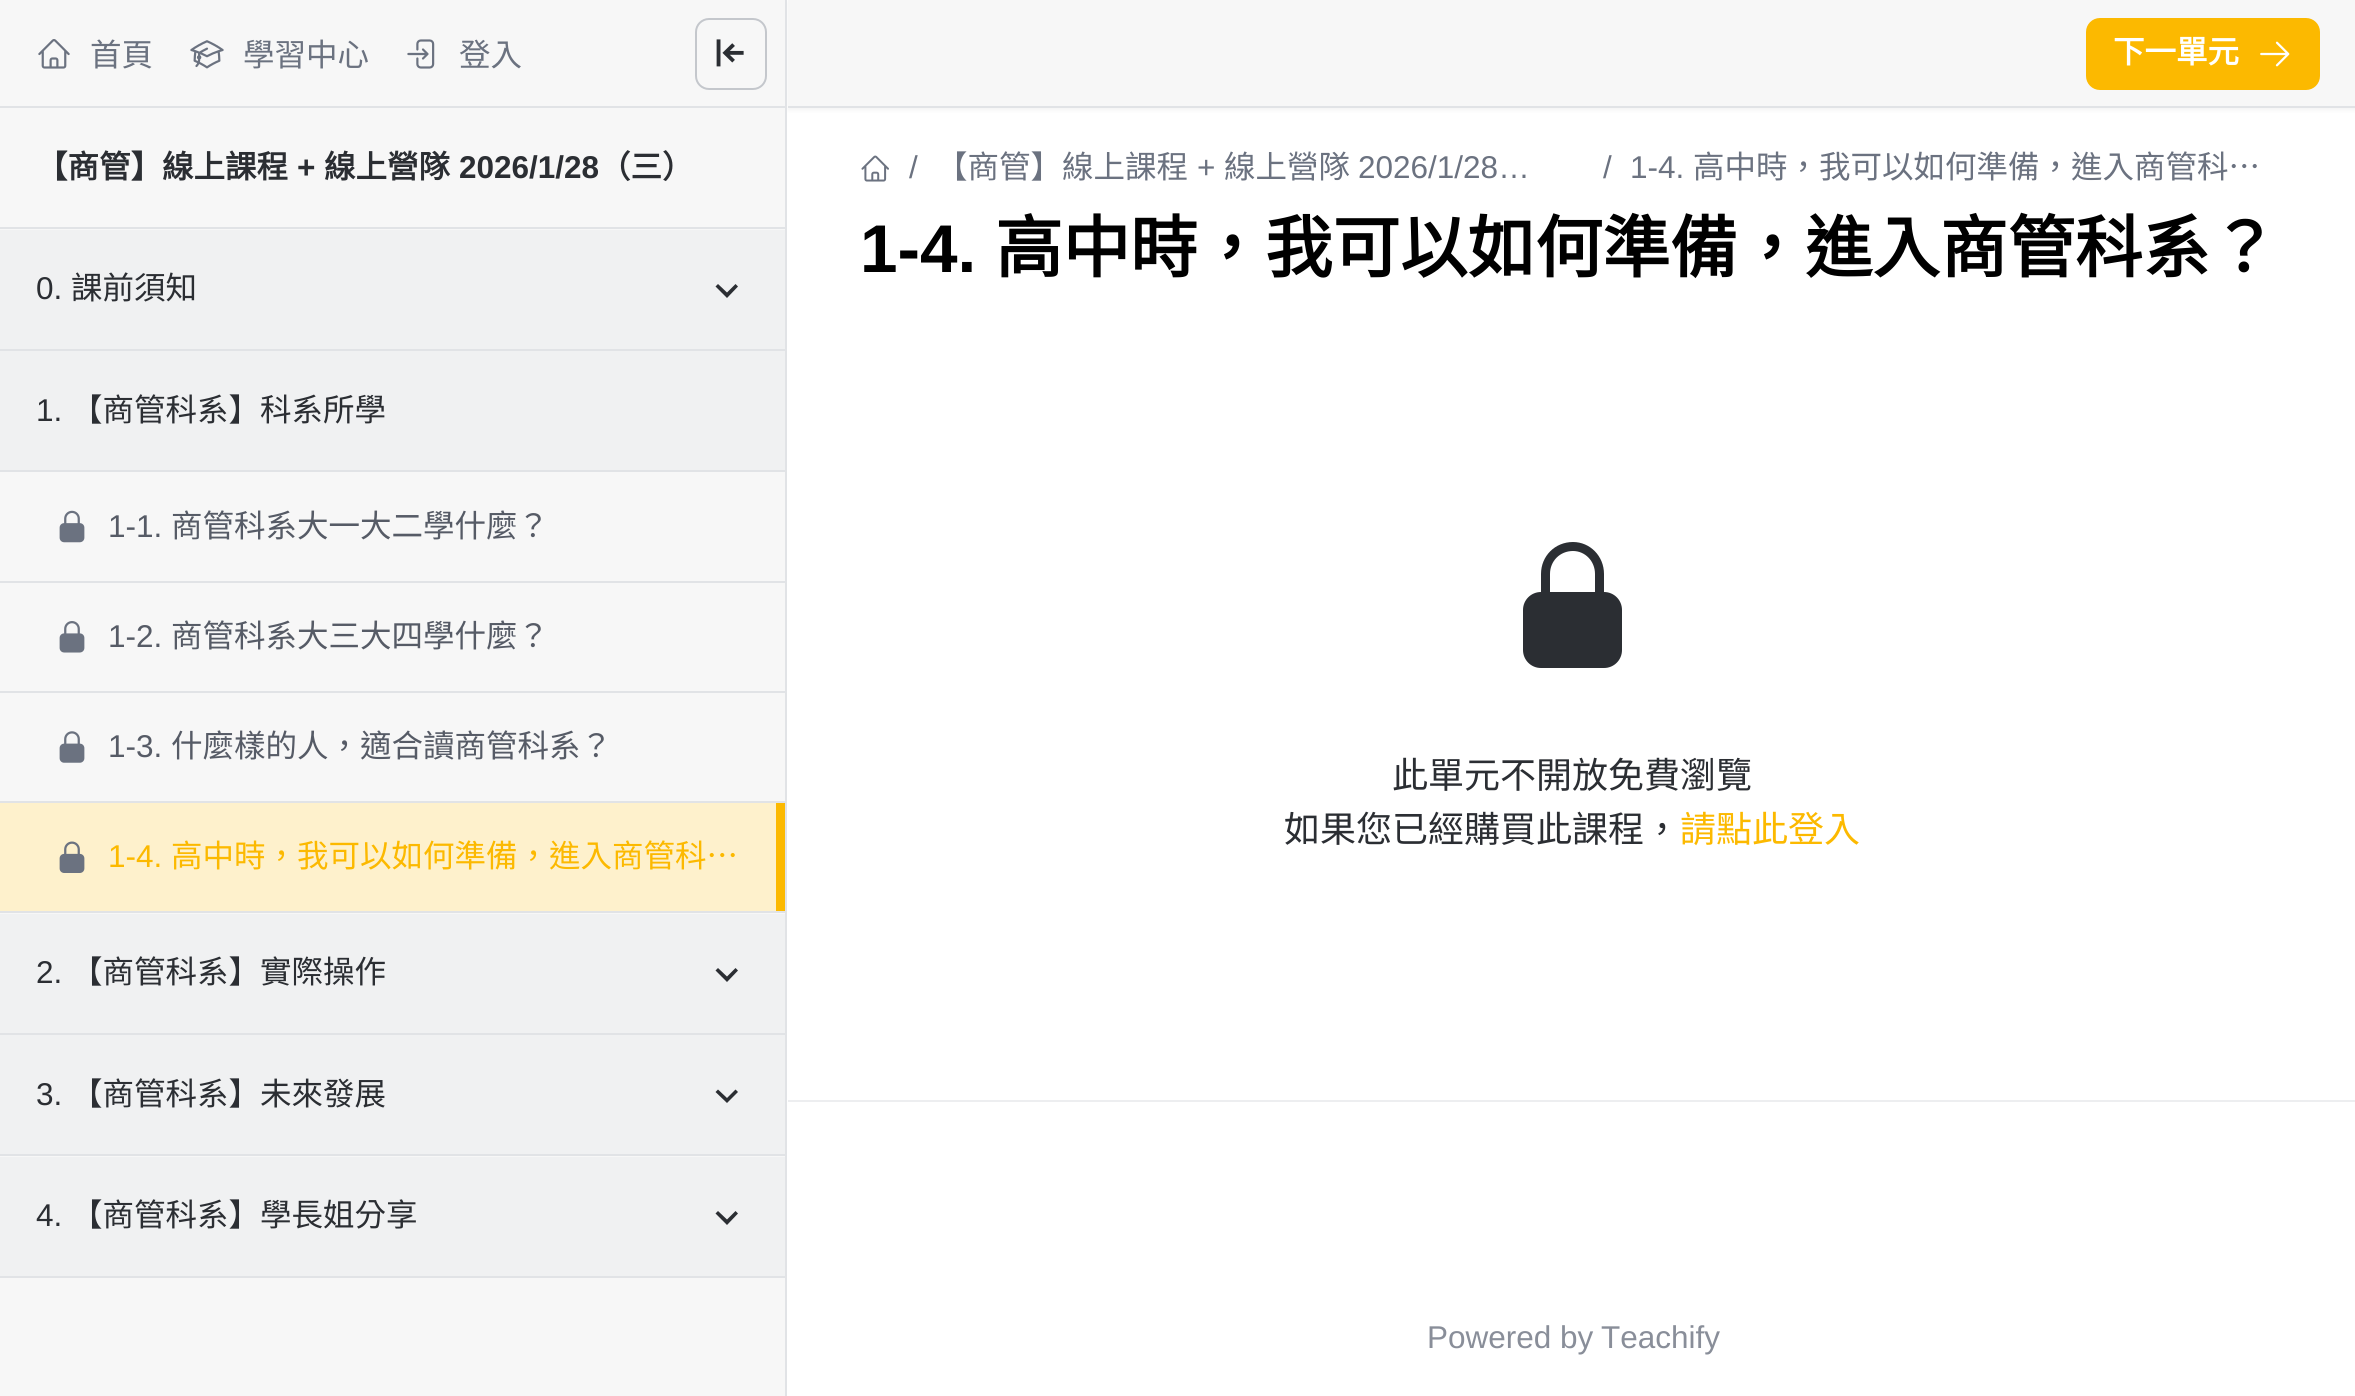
import math
import cairo

surface = cairo.ImageSurface(cairo.FORMAT_RGB24, 2355, 1396)
cr = cairo.Context(surface)
options = cairo.FontOptions()
options.set_hint_metrics(cairo.HINT_METRICS_OFF)
options.set_hint_style(cairo.HINT_STYLE_NONE)
cr.set_font_options(options)
cr.set_miter_limit(4)


def rgb(code):
    cr.set_source_rgb(*(v / 255 for v in bytes.fromhex(code[-6:])))


def rrect(x, y, w, h, r):
    cr.new_sub_path()
    for i, (u, v) in enumerate([(x + w - r, y + h - r), (x + r, y + h - r), (x + r, y + r), (x + w - r, y + r)]):
        cr.arc(u, v, r, i * math.pi / 2, (i + 1) * math.pi / 2)
    cr.close_path()


def soft_shadow(x, y, w, h, r, blur, alpha):
    cr.push_group_with_content(cairo.CONTENT_ALPHA)
    cr.set_operator(cairo.OPERATOR_SOURCE)
    for i in range(15, -16, -2):
        e = blur * i / 6
        if min(w, h) + 2 * e > 0:
            cr.set_source_rgba(0, 0, 0, alpha * math.erfc((i - 1) / 8.5) / 2)
            rrect(x - e, y - e, w + 2 * e, h + 2 * e, max(0, min(r + e + blur * .6, min(w, h) / 2 + e)))
            cr.fill()
    cr.mask(cr.pop_group())


def image(path, x, y, w, h):
    cr.save()
    cr.set_source_surface(cairo.ImageSurface.create_from_png(path), x, y)
    cr.rectangle(x, y, w, h)
    cr.fill()
    cr.restore()


rgb("#ffffff")
cr.paint()
rgb("#000000")
soft_shadow(788, 2, 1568, 108, 0, 2, 0.05)
for x, y, w, h, color in [
    (0, 0, 785, 1396, "#f7f7f7"),
    (785, 0, 2, 1396, "#e1e3e6"),
    (0, 106, 785, 2, "#e1e3e6"),
]:
    rgb(color)
    cr.rectangle(x, y, w, h)
    cr.fill()
image("img/1.png", 38, 39, 32, 30)
image("img/2.png", 190, 40, 34, 29)
image("img/3.png", 407, 39, 28, 30)
rrect(696, 19, 70, 70, 13)
rgb("#c4c7cc")
cr.stroke()
image("img/4.png", 716, 39, 28, 28)
rgb("#e1e3e6")
cr.rectangle(0, 227, 785, 2)
cr.fill()
rgb("#f0f1f2")
cr.rectangle(0, 230, 785, 119)
cr.fill()
rgb("#2b2e33")
cr.new_path()
cr.move_to(735.5, 284)
cr.line_to(727, 292.5)
cr.line_to(718, 284)
cr.line_to(715.5, 286.5)
cr.line_to(727, 298)
cr.line_to(738, 286.5)
cr.close_path()
cr.fill()
for x, y, w, h, color in [
    (0, 349, 785, 2, "#e1e3e6"),
    (0, 351, 785, 119, "#f0f1f2"),
    (0, 470, 785, 2, "#e1e3e6"),
]:
    rgb(color)
    cr.rectangle(x, y, w, h)
    cr.fill()
image("img/5.png", 59, 510, 26, 33)
cr.rectangle(0, 581, 785, 2)
cr.fill()
image("img/6.png", 59, 621, 26, 32)
cr.rectangle(0, 691, 785, 2)
cr.fill()
image("img/7.png", 59, 731, 26, 32)
for x, y, w, h, color in [
    (0, 801, 785, 2, "#e1e3e6"),
    (0, 803, 776, 108, "#fef1cc"),
    (776, 803, 9, 108, "#fcb900"),
]:
    rgb(color)
    cr.rectangle(x, y, w, h)
    cr.fill()
image("img/8.png", 59, 841, 26, 32)
rgb("#e1e3e6")
cr.rectangle(0, 911, 785, 2)
cr.fill()
rgb("#f0f1f2")
cr.rectangle(0, 914, 785, 119)
cr.fill()
rgb("#2b2e33")
cr.new_path()
cr.move_to(735.5, 968)
cr.line_to(727, 976.5)
cr.line_to(718, 968)
cr.line_to(715.5, 970.5)
cr.line_to(727, 982)
cr.line_to(738, 970.5)
cr.close_path()
cr.fill()
rgb("#e1e3e6")
cr.rectangle(0, 1033, 785, 2)
cr.fill()
rgb("#f0f1f2")
cr.rectangle(0, 1035, 785, 119)
cr.fill()
rgb("#2b2e33")
cr.new_path()
cr.move_to(735.5, 1089.5)
cr.line_to(727, 1098)
cr.line_to(718, 1089.5)
cr.line_to(715.5, 1092)
cr.line_to(727, 1103)
cr.line_to(738, 1092)
cr.close_path()
cr.fill()
for x, y, w, h, color in [
    (0, 1154, 785, 2, "#e1e3e6"),
    (0, 1276, 785, 2, "#e1e3e6"),
    (0, 1157, 785, 119, "#f0f1f2"),
]:
    rgb(color)
    cr.rectangle(x, y, w, h)
    cr.fill()
rgb("#2b2e33")
cr.new_path()
cr.move_to(735.5, 1211)
cr.line_to(727, 1219.5)
cr.line_to(718, 1211)
cr.line_to(715.5, 1213.5)
cr.line_to(727, 1225)
cr.line_to(738, 1213.5)
cr.close_path()
cr.fill()
rgb("#f7f7f7")
cr.rectangle(788, 0, 1567, 106)
cr.fill()
rgb("#e1e3e6")
cr.rectangle(788, 106, 1567, 2)
cr.fill()
rgb("#fcb900")
rrect(2086, 18, 234, 72, 14)
cr.fill()
image("img/9.png", 2260, 41, 30, 26)
image("img/10.png", 861, 155, 28, 27)
rgb("#2b2e33")
cr.set_fill_rule(cairo.FILL_RULE_EVEN_ODD)
cr.new_path()
cr.move_to(1573, 542)
cr.curve_to(1555, 542, 1541, 556, 1541, 574)
cr.line_to(1541, 592)
cr.curve_to(1531, 592, 1523, 600, 1523, 610)
cr.line_to(1523, 650)
cr.curve_to(1523, 660, 1531, 668, 1541, 668)
cr.line_to(1604, 668)
cr.curve_to(1614, 668, 1622, 660, 1622, 650)
cr.line_to(1622, 610)
cr.curve_to(1622, 600, 1614, 592, 1604, 592)
cr.line_to(1604, 574)
cr.curve_to(1604, 556, 1590, 542, 1573, 542)
cr.close_path()
cr.move_to(1595, 592)
cr.line_to(1595, 574)
cr.curve_to(1595, 561, 1585, 551, 1573, 551)
cr.curve_to(1560, 551, 1550, 561, 1550, 574)
cr.line_to(1550, 592)
cr.close_path()
cr.fill()
rgb("#edeef0")
cr.rectangle(788, 1100, 1567, 2)
cr.fill()
cr.select_font_face("Noto Sans CJK TC")
cr.set_font_size(31.5)
rgb("#6b7280")
for x, y, s in [
    (90, 66, "首頁"),
    (243, 66, "學習中心"),
    (459, 66, "登入"),
]:
    cr.move_to(x, y)
    cr.show_text(s)
cr.select_font_face("Noto Sans CJK TC", cairo.FONT_SLANT_NORMAL, cairo.FONT_WEIGHT_BOLD)
rgb("#2b2e33")
cr.move_to(36, 178)
cr.show_text("【商管】線上課程")
cr.select_font_face("Liberation Sans", cairo.FONT_SLANT_NORMAL, cairo.FONT_WEIGHT_BOLD)
cr.move_to(297, 178)
cr.show_text("+")
cr.select_font_face("Noto Sans CJK TC", cairo.FONT_SLANT_NORMAL, cairo.FONT_WEIGHT_BOLD)
cr.move_to(324, 178)
cr.show_text("線上營隊")
cr.select_font_face("Liberation Sans", cairo.FONT_SLANT_NORMAL, cairo.FONT_WEIGHT_BOLD)
cr.move_to(459, 178)
cr.show_text("2026/1/28")
cr.select_font_face("Noto Sans CJK TC", cairo.FONT_SLANT_NORMAL, cairo.FONT_WEIGHT_BOLD)
cr.move_to(599, 178)
cr.show_text("（三）")
cr.select_font_face("Liberation Sans")
cr.move_to(36, 299)
cr.show_text("0.")
cr.select_font_face("Noto Sans CJK TC")
cr.move_to(71, 299)
cr.show_text("課前須知")
cr.select_font_face("Liberation Sans")
cr.move_to(36, 421)
cr.show_text("1.")
cr.select_font_face("Noto Sans CJK TC")
cr.move_to(71, 421)
cr.show_text("【商管科系】科系所學")
cr.select_font_face("Liberation Sans")
rgb("#565b66")
cr.move_to(108, 537)
cr.show_text("1-1.")
cr.select_font_face("Noto Sans CJK TC")
cr.move_to(171, 537)
cr.show_text("商管科系大一大二學什麼？")
cr.select_font_face("Liberation Sans")
cr.move_to(108, 647)
cr.show_text("1-2.")
cr.select_font_face("Noto Sans CJK TC")
cr.move_to(171, 647)
cr.show_text("商管科系大三大四學什麼？")
cr.select_font_face("Liberation Sans")
cr.move_to(108, 757)
cr.show_text("1-3.")
cr.select_font_face("Noto Sans CJK TC")
cr.move_to(171, 757)
cr.show_text("什麼樣的人，適合讀商管科系？")
cr.select_font_face("Liberation Sans")
rgb("#fcb900")
cr.move_to(108, 867)
cr.show_text("1-4.")
cr.select_font_face("Noto Sans CJK TC")
cr.move_to(171, 867)
cr.show_text("高中時，我可以如何準備，進入商管科…")
cr.select_font_face("Liberation Sans")
rgb("#2b2e33")
cr.move_to(36, 983)
cr.show_text("2.")
cr.select_font_face("Noto Sans CJK TC")
cr.move_to(71, 983)
cr.show_text("【商管科系】實際操作")
cr.select_font_face("Liberation Sans")
cr.move_to(36, 1105)
cr.show_text("3.")
cr.select_font_face("Noto Sans CJK TC")
cr.move_to(71, 1105)
cr.show_text("【商管科系】未來發展")
cr.select_font_face("Liberation Sans")
cr.move_to(36, 1226)
cr.show_text("4.")
cr.select_font_face("Noto Sans CJK TC")
cr.move_to(71, 1226)
cr.show_text("【商管科系】學長姐分享")
cr.select_font_face("Noto Sans CJK TC", cairo.FONT_SLANT_NORMAL, cairo.FONT_WEIGHT_BOLD)
rgb("#ffffff")
cr.move_to(2113, 63)
cr.show_text("下一單元")
cr.select_font_face("Liberation Sans")
rgb("#6b7280")
cr.move_to(909, 178)
cr.show_text("/")
cr.select_font_face("Noto Sans CJK TC")
cr.move_to(936, 178)
cr.show_text("【商管】線上課程")
cr.select_font_face("Liberation Sans")
cr.move_to(1197, 178)
cr.show_text("+")
cr.select_font_face("Noto Sans CJK TC")
cr.move_to(1224, 178)
cr.show_text("線上營隊")
cr.select_font_face("Liberation Sans")
for x, y, s in [
    (1358, 178, "2026/1/28…"),
    (1603, 178, "/"),
    (1630, 178, "1-4."),
]:
    cr.move_to(x, y)
    cr.show_text(s)
cr.select_font_face("Noto Sans CJK TC")
cr.move_to(1693, 178)
cr.show_text("高中時，我可以如何準備，進入商管科…")
cr.select_font_face("Liberation Sans", cairo.FONT_SLANT_NORMAL, cairo.FONT_WEIGHT_BOLD)
cr.set_font_size(67.5)
rgb("#000000")
cr.move_to(860, 272)
cr.show_text("1-4.")
cr.select_font_face("Noto Sans CJK TC", cairo.FONT_SLANT_NORMAL, cairo.FONT_WEIGHT_BOLD)
cr.move_to(995, 272)
cr.show_text("高中時，我可以如何準備，進入商管科系？")
cr.select_font_face("Noto Sans CJK TC")
cr.set_font_size(36)
rgb("#2b2e33")
cr.move_to(1392, 788)
cr.show_text("此單元不開放免費瀏覽")
cr.move_to(1284, 842)
cr.show_text("如果您已經購買此課程，")
rgb("#fcb900")
cr.move_to(1680, 842)
cr.show_text("請點此登入")
cr.select_font_face("Liberation Sans")
cr.set_font_size(31.5)
rgb("#898e99")
cr.move_to(1427, 1348)
cr.show_text("Powered by")
cr.move_to(1601, 1348)
cr.show_text("Teachify")
surface.write_to_png("page.png")
